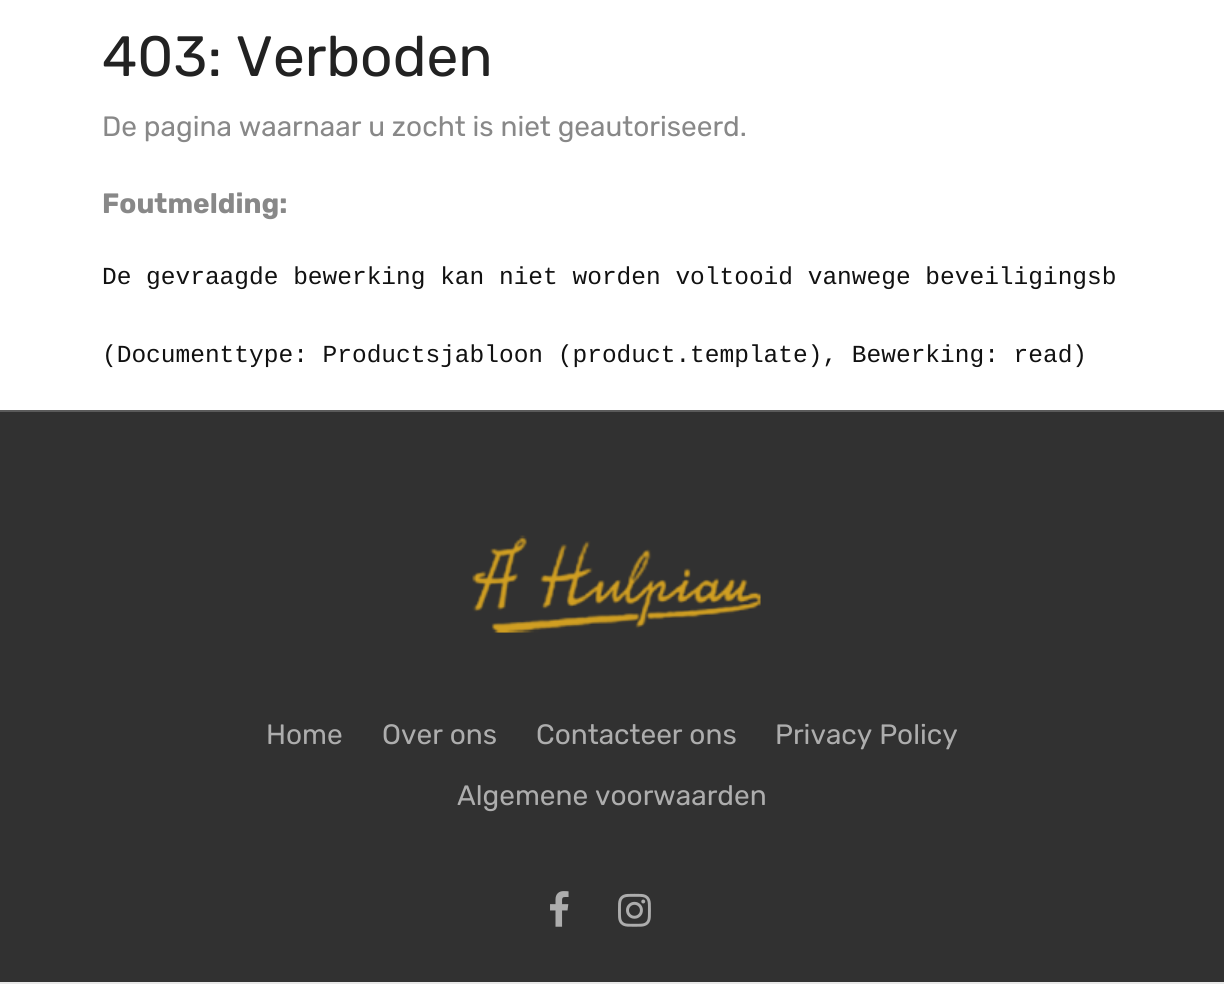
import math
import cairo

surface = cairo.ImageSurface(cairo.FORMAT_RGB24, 1224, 984)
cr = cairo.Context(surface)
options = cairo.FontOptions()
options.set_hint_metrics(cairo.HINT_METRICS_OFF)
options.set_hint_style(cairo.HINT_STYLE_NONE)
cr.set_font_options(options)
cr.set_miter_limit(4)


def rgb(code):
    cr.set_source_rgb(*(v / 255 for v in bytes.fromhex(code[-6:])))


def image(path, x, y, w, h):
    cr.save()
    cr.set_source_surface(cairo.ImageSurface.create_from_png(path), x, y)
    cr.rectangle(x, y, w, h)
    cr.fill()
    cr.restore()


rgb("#ffffff")
cr.paint()
rgb("#313131")
cr.rectangle(0, 412, 1224, 570)
cr.fill()
rgb("#5a5a5a")
cr.rectangle(0, 410, 1224, 2)
cr.fill()
image("img/1.png", 472, 535, 289, 98)
image("img/2.png", 550, 891, 19, 36)
image("img/3.png", 618, 893, 33, 34)
rgb("#e7e7e7")
cr.rectangle(0, 982, 1224, 2)
cr.fill()
cr.select_font_face("Rubik")
cr.set_font_size(56.75)
rgb("#222222")
cr.move_to(102, 76)
cr.show_text("403: Verboden")
cr.set_font_size(28)
rgb("#888888")
cr.move_to(102, 136)
cr.show_text("De pagina waarnaar u zocht is niet geautoriseerd.")
cr.select_font_face("Rubik", cairo.FONT_SLANT_NORMAL, cairo.FONT_WEIGHT_BOLD)
cr.move_to(102, 213)
cr.show_text("Foutmelding:")
cr.select_font_face("Liberation Mono")
cr.set_font_size(24.5)
rgb("#111111")
cr.move_to(102, 284)
cr.show_text("De gevraagde bewerking kan niet worden voltooid vanwege beveiligingsb")
cr.move_to(102, 362)
cr.show_text("(Documenttype: Productsjabloon (product.template), Bewerking: read)")
cr.select_font_face("Rubik")
cr.set_font_size(28)
rgb("#adadad")
for x, y, s in [
    (266, 744, "Home"),
    (382, 744, "Over ons"),
    (536, 744, "Contacteer ons"),
    (775, 744, "Privacy Policy"),
    (457, 805, "Algemene voorwaarden"),
]:
    cr.move_to(x, y)
    cr.show_text(s)
surface.write_to_png("page.png")
